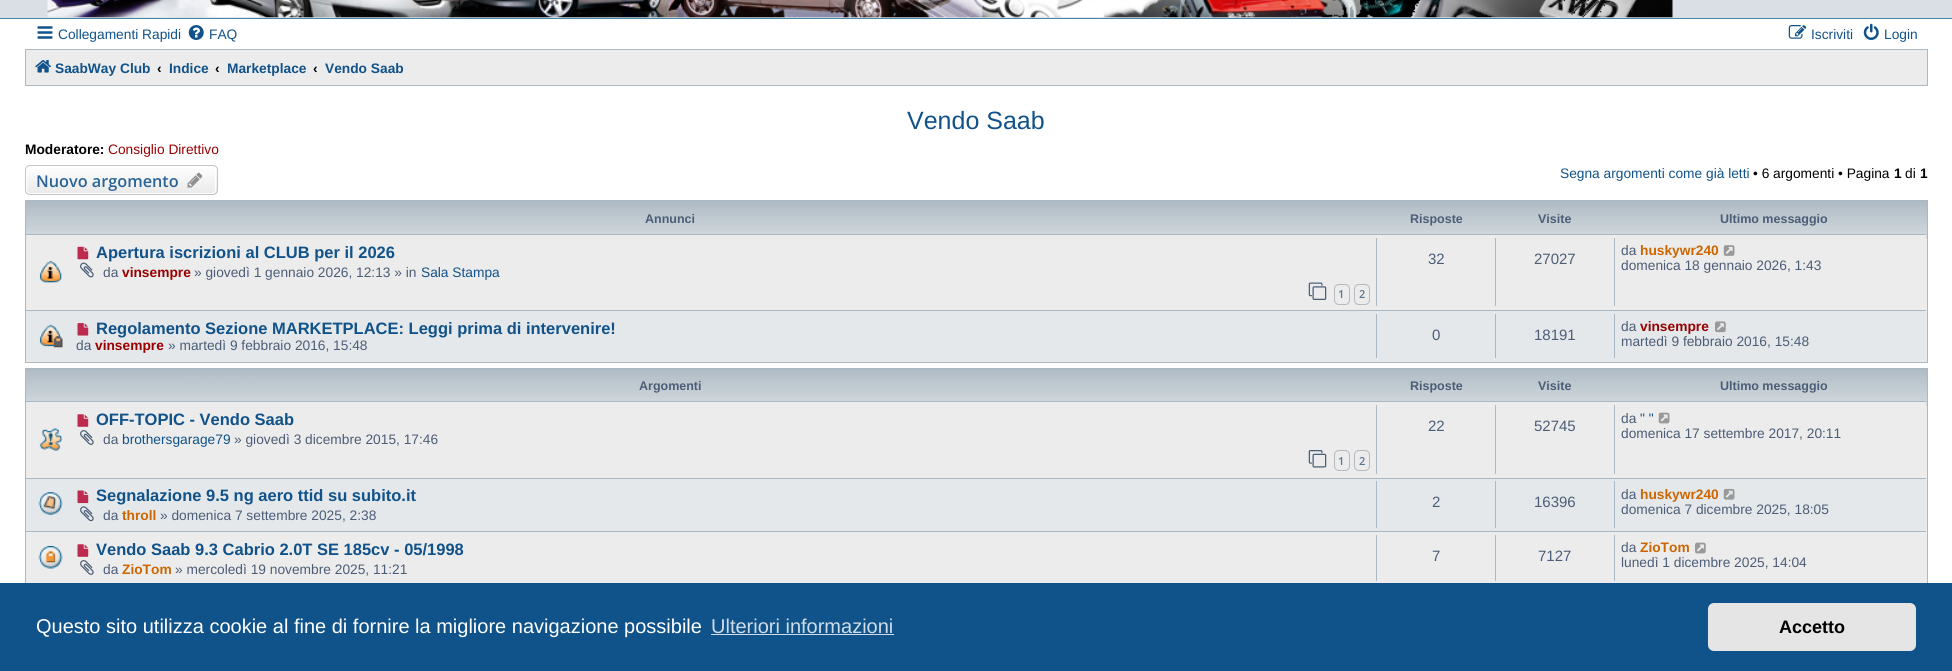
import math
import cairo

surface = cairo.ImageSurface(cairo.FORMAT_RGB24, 1952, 671)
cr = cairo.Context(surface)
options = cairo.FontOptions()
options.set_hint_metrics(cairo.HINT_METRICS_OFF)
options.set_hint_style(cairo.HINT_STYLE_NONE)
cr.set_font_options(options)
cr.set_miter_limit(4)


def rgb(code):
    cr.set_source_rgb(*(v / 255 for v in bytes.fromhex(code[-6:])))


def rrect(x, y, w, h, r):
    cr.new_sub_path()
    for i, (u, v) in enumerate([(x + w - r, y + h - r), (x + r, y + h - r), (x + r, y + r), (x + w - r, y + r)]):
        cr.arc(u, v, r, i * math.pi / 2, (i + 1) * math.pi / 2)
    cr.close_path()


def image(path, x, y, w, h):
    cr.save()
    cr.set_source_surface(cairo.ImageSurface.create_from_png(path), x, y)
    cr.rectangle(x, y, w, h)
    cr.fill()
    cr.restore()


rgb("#ffffff")
cr.paint()
rgb("#d9dfe4")
cr.rectangle(0, 0, 1952, 18)
cr.fill()
rgb("#4787a7")
cr.rectangle(0, 18, 1952, 1)
cr.fill()
image("img/1.png", 47, 0, 1626, 18)
image("img/2.png", 37, 26, 16, 13)
image("img/3.png", 188, 25, 16, 15)
image("img/4.png", 1788, 25, 19, 14)
image("img/5.png", 1863, 23, 16, 17)
rgb("#ececec")
cr.rectangle(25.5, 49.5, 1902, 36)
cr.fill_preserve()
rgb("#a9b8c2")
cr.set_line_width(1)
cr.stroke()
image("img/6.png", 35, 60, 16, 13)
cr.save()
rrect(25, 165, 193, 30, 5)
cr.clip()
gradient = cairo.LinearGradient(121, 166, 121, 194)
gradient.add_color_stop_rgba(0, 1, 1, 1, 1)
gradient.add_color_stop_rgba(1, 0.914, 0.914, 0.914, 1)
cr.set_source(gradient)
cr.rectangle(25, 166, 193, 28)
cr.fill()
cr.restore()
rrect(26.5, 166.5, 189, 27, 3.5)
rgb("#ffffff")
cr.stroke()
rrect(25.5, 165.5, 192, 29, 4.5)
rgb("#c7c3bf")
cr.stroke()
image("img/7.png", 187, 172, 16, 16)
rgb("#ececec")
cr.rectangle(26, 238, 1901, 124)
cr.fill()
image("img/8.png", 26, 201, 1901, 38)
cr.rectangle(25.5, 200.5, 1902, 162)
rgb("#a9b8c2")
cr.stroke()
rgb("#ececec")
cr.rectangle(26, 235, 1900, 4)
cr.fill()
rgb("#a9b8c2")
cr.rectangle(26, 234, 1900, 1)
cr.fill()
image("img/9.png", 39, 261, 24, 22)
image("img/10.png", 77, 246, 12, 14)
image("img/11.png", 80, 262, 14, 16)
image("img/12.png", 1308, 282, 19, 18)
rrect(1334.5, 284.5, 15, 20, 4.5)
rgb("#b4bac0")
cr.stroke()
rrect(1354.5, 284.5, 15, 20, 4.5)
cr.stroke()
for x, y, w, h, color in [
    (1376, 238, 1, 68, "#a9b8c2"),
    (1495, 238, 1, 68, "#a9b8c2"),
    (1614, 238, 1, 68, "#a9b8c2"),
]:
    rgb(color)
    cr.rectangle(x, y, w, h)
    cr.fill()
image("img/13.png", 1723, 245, 12, 11)
rgb("#e5e8ea")
cr.rectangle(26, 311, 1900, 50)
cr.fill()
rgb("#a9b8c2")
cr.rectangle(26, 310, 1900, 1)
cr.fill()
image("img/14.png", 39, 324, 24, 24)
image("img/15.png", 77, 323, 12, 13)
for x, y, w, h, color in [
    (1376, 314, 1, 44, "#a9b8c2"),
    (1495, 314, 1, 44, "#a9b8c2"),
    (1614, 314, 1, 44, "#a9b8c2"),
]:
    rgb(color)
    cr.rectangle(x, y, w, h)
    cr.fill()
image("img/16.png", 1715, 321, 11, 12)
rgb("#ececec")
cr.rectangle(26, 406, 1901, 177)
cr.fill()
image("img/17.png", 26, 369, 1901, 37)
cr.rectangle(25.5, 368.5, 1902, 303)
rgb("#a9b8c2")
cr.stroke()
rgb("#ececec")
cr.rectangle(26, 402, 1900, 4)
cr.fill()
rgb("#a9b8c2")
cr.rectangle(26, 401, 1900, 1)
cr.fill()
image("img/18.png", 39, 428, 24, 23)
image("img/19.png", 77, 414, 12, 13)
image("img/20.png", 80, 430, 14, 15)
image("img/21.png", 1308, 450, 19, 18)
rrect(1334.5, 450.5, 15, 20, 4.5)
rgb("#b4bac0")
cr.stroke()
rrect(1354.5, 450.5, 15, 20, 4.5)
cr.stroke()
for x, y, w, h, color in [
    (1376, 405, 1, 69, "#a9b8c2"),
    (1495, 405, 1, 69, "#a9b8c2"),
    (1614, 405, 1, 69, "#a9b8c2"),
]:
    rgb(color)
    cr.rectangle(x, y, w, h)
    cr.fill()
image("img/22.png", 1658, 412, 12, 12)
rgb("#e5e8ea")
cr.rectangle(26, 479, 1900, 52)
cr.fill()
rgb("#a9b8c2")
cr.rectangle(26, 478, 1900, 1)
cr.fill()
image("img/23.png", 38, 492, 25, 23)
image("img/24.png", 77, 490, 12, 14)
image("img/25.png", 80, 506, 14, 16)
for x, y, w, h, color in [
    (1376, 481, 1, 47, "#a9b8c2"),
    (1495, 481, 1, 47, "#a9b8c2"),
    (1614, 481, 1, 47, "#a9b8c2"),
]:
    rgb(color)
    cr.rectangle(x, y, w, h)
    cr.fill()
image("img/26.png", 1723, 488, 12, 12)
cr.rectangle(26, 531, 1900, 1)
cr.fill()
image("img/27.png", 38, 546, 25, 23)
image("img/19.png", 77, 544, 12, 13)
image("img/20.png", 80, 560, 14, 15)
for x, y, w, h, color in [
    (1376, 535, 1, 46, "#a9b8c2"),
    (1495, 535, 1, 46, "#a9b8c2"),
    (1614, 535, 1, 46, "#a9b8c2"),
]:
    rgb(color)
    cr.rectangle(x, y, w, h)
    cr.fill()
image("img/28.png", 1695, 542, 11, 12)
rgb("#0f538a")
cr.rectangle(0, 583, 1952, 88)
cr.fill()
rgb("#cfdde8")
cr.rectangle(711, 634, 183, 1)
cr.fill()
rgb("#e5e5e5")
rrect(1708, 603, 208, 48, 6)
cr.fill()
cr.select_font_face("Liberation Sans")
cr.set_font_size(13.75)
rgb("#105289")
for x, y, s in [
    (58, 39, "Collegamenti Rapidi"),
    (209, 39, "FAQ"),
    (1811, 39, "Iscriviti"),
    (1884, 39, "Login"),
]:
    cr.move_to(x, y)
    cr.show_text(s)
cr.select_font_face("Liberation Sans", cairo.FONT_SLANT_NORMAL, cairo.FONT_WEIGHT_BOLD)
cr.move_to(55, 73)
cr.show_text("SaabWay Club")
rgb("#000000")
cr.move_to(157, 73)
cr.show_text("‹")
rgb("#105289")
cr.move_to(169, 73)
cr.show_text("Indice")
rgb("#000000")
cr.move_to(215, 73)
cr.show_text("‹")
cr.save()
cr.rectangle(228, 53, 78, 30)
cr.clip()
rgb("#105289")
cr.move_to(227, 73)
cr.show_text("Marketplace")
cr.restore()
cr.move_to(313, 73)
cr.show_text("‹")
rgb("#105289")
cr.move_to(325, 73)
cr.show_text("Vendo Saab")
cr.select_font_face("Liberation Sans")
cr.set_font_size(25)
cr.move_to(907, 129)
cr.show_text("Vendo Saab")
cr.select_font_face("Liberation Sans", cairo.FONT_SLANT_NORMAL, cairo.FONT_WEIGHT_BOLD)
cr.set_font_size(13.75)
rgb("#000000")
cr.move_to(25, 154)
cr.show_text("Moderatore:")
cr.select_font_face("Liberation Sans")
rgb("#990000")
cr.move_to(108, 154)
cr.show_text("Consiglio Direttivo")
cr.select_font_face("Open Sans SemiBold")
cr.set_font_size(16.25)
rgb("#2a6496")
cr.move_to(36, 187)
cr.show_text("Nuovo argomento")
cr.select_font_face("Liberation Sans")
cr.set_font_size(13.75)
rgb("#105289")
cr.move_to(1560, 178)
cr.show_text("Segna argomenti come già letti")
rgb("#000000")
cr.move_to(1753, 178)
cr.show_text("• 6 argomenti • Pagina")
cr.select_font_face("Liberation Sans", cairo.FONT_SLANT_NORMAL, cairo.FONT_WEIGHT_BOLD)
cr.move_to(1894, 178)
cr.show_text("1")
cr.select_font_face("Liberation Sans")
cr.move_to(1905, 178)
cr.show_text("di")
cr.select_font_face("Liberation Sans", cairo.FONT_SLANT_NORMAL, cairo.FONT_WEIGHT_BOLD)
cr.move_to(1920, 178)
cr.show_text("1")
cr.set_font_size(12.5)
rgb("#4c5d77")
for x, y, s in [
    (645, 223, "Annunci"),
    (1410, 223, "Risposte"),
    (1538, 223, "Visite"),
    (1720, 223, "Ultimo messaggio"),
]:
    cr.move_to(x, y)
    cr.show_text(s)
cr.set_font_size(16.5)
rgb("#105289")
cr.move_to(96, 258)
cr.show_text("Apertura iscrizioni al CLUB per il 2026")
cr.select_font_face("Liberation Sans")
cr.set_font_size(13.75)
rgb("#4c5d77")
cr.move_to(103, 277)
cr.show_text("da")
cr.select_font_face("Liberation Sans", cairo.FONT_SLANT_NORMAL, cairo.FONT_WEIGHT_BOLD)
rgb("#990000")
cr.move_to(122, 277)
cr.show_text("vinsempre")
cr.select_font_face("Liberation Sans")
rgb("#4c5d77")
cr.move_to(194, 277)
cr.show_text("» giovedì 1 gennaio 2026, 12:13 » in")
rgb("#105289")
cr.move_to(421, 277)
cr.show_text("Sala Stampa")
cr.select_font_face("Open Sans SemiBold")
cr.set_font_size(11)
rgb("#5c758c")
cr.move_to(1338, 298)
cr.show_text("1")
cr.move_to(1359, 298)
cr.show_text("2")
cr.select_font_face("Liberation Sans")
cr.set_font_size(15)
rgb("#4c5d77")
cr.move_to(1428, 264)
cr.show_text("32")
cr.move_to(1534, 264)
cr.show_text("27027")
cr.set_font_size(13.75)
cr.move_to(1621, 255)
cr.show_text("da")
cr.select_font_face("Liberation Sans", cairo.FONT_SLANT_NORMAL, cairo.FONT_WEIGHT_BOLD)
rgb("#cc6600")
cr.move_to(1640, 255)
cr.show_text("huskywr240")
cr.select_font_face("Liberation Sans")
rgb("#4c5d77")
cr.move_to(1621, 270)
cr.show_text("domenica 18 gennaio 2026, 1:43")
cr.select_font_face("Liberation Sans", cairo.FONT_SLANT_NORMAL, cairo.FONT_WEIGHT_BOLD)
cr.set_font_size(16.5)
rgb("#105289")
cr.move_to(96, 334)
cr.show_text("Regolamento Sezione MARKETPLACE: Leggi prima di intervenire!")
cr.select_font_face("Liberation Sans")
cr.set_font_size(13.75)
rgb("#4c5d77")
cr.move_to(76, 350)
cr.show_text("da")
cr.select_font_face("Liberation Sans", cairo.FONT_SLANT_NORMAL, cairo.FONT_WEIGHT_BOLD)
rgb("#990000")
cr.move_to(95, 350)
cr.show_text("vinsempre")
cr.select_font_face("Liberation Sans")
rgb("#4c5d77")
cr.move_to(168, 350)
cr.show_text("» martedì 9 febbraio 2016, 15:48")
cr.set_font_size(15)
cr.move_to(1432, 340)
cr.show_text("0")
cr.move_to(1534, 340)
cr.show_text("18191")
cr.set_font_size(13.75)
cr.move_to(1621, 331)
cr.show_text("da")
cr.select_font_face("Liberation Sans", cairo.FONT_SLANT_NORMAL, cairo.FONT_WEIGHT_BOLD)
rgb("#990000")
cr.move_to(1640, 331)
cr.show_text("vinsempre")
cr.select_font_face("Liberation Sans")
rgb("#4c5d77")
cr.move_to(1621, 346)
cr.show_text("martedì 9 febbraio 2016, 15:48")
cr.select_font_face("Liberation Sans", cairo.FONT_SLANT_NORMAL, cairo.FONT_WEIGHT_BOLD)
cr.set_font_size(12.5)
for x, y, s in [
    (639, 390, "Argomenti"),
    (1410, 390, "Risposte"),
    (1538, 390, "Visite"),
    (1720, 390, "Ultimo messaggio"),
]:
    cr.move_to(x, y)
    cr.show_text(s)
cr.set_font_size(16.5)
rgb("#105289")
cr.move_to(96, 425)
cr.show_text("OFF-TOPIC - Vendo Saab")
cr.select_font_face("Liberation Sans")
cr.set_font_size(13.75)
rgb("#4c5d77")
cr.move_to(103, 444)
cr.show_text("da")
rgb("#105289")
cr.move_to(122, 444)
cr.show_text("brothersgarage79")
rgb("#4c5d77")
cr.move_to(234, 444)
cr.show_text("» giovedì 3 dicembre 2015, 17:46")
cr.select_font_face("Open Sans SemiBold")
cr.set_font_size(11)
rgb("#5c758c")
cr.move_to(1338, 465)
cr.show_text("1")
cr.move_to(1359, 465)
cr.show_text("2")
cr.select_font_face("Liberation Sans")
cr.set_font_size(15)
rgb("#4c5d77")
cr.move_to(1428, 431)
cr.show_text("22")
cr.move_to(1534, 431)
cr.show_text("52745")
cr.set_font_size(13.75)
cr.move_to(1621, 423)
cr.show_text("da")
rgb("#105289")
cr.move_to(1640, 423)
cr.show_text("\" \"")
rgb("#4c5d77")
cr.move_to(1621, 438)
cr.show_text("domenica 17 settembre 2017, 20:11")
cr.select_font_face("Liberation Sans", cairo.FONT_SLANT_NORMAL, cairo.FONT_WEIGHT_BOLD)
cr.set_font_size(16.5)
rgb("#105289")
cr.move_to(96, 501)
cr.show_text("Segnalazione 9.5 ng aero ttid su subito.it")
cr.select_font_face("Liberation Sans")
cr.set_font_size(13.75)
rgb("#4c5d77")
cr.move_to(103, 520)
cr.show_text("da")
cr.select_font_face("Liberation Sans", cairo.FONT_SLANT_NORMAL, cairo.FONT_WEIGHT_BOLD)
rgb("#cc6600")
cr.move_to(122, 520)
cr.show_text("throll")
cr.select_font_face("Liberation Sans")
rgb("#4c5d77")
cr.move_to(160, 520)
cr.show_text("» domenica 7 settembre 2025, 2:38")
cr.set_font_size(15)
cr.move_to(1432, 507)
cr.show_text("2")
cr.move_to(1534, 507)
cr.show_text("16396")
cr.set_font_size(13.75)
cr.move_to(1621, 499)
cr.show_text("da")
cr.select_font_face("Liberation Sans", cairo.FONT_SLANT_NORMAL, cairo.FONT_WEIGHT_BOLD)
rgb("#cc6600")
cr.move_to(1640, 499)
cr.show_text("huskywr240")
cr.select_font_face("Liberation Sans")
rgb("#4c5d77")
cr.move_to(1621, 514)
cr.show_text("domenica 7 dicembre 2025, 18:05")
cr.select_font_face("Liberation Sans", cairo.FONT_SLANT_NORMAL, cairo.FONT_WEIGHT_BOLD)
cr.set_font_size(16.5)
rgb("#105289")
cr.move_to(96, 555)
cr.show_text("Vendo Saab 9.3 Cabrio 2.0T SE 185cv - 05/1998")
cr.select_font_face("Liberation Sans")
cr.set_font_size(13.75)
rgb("#4c5d77")
cr.move_to(103, 574)
cr.show_text("da")
cr.select_font_face("Liberation Sans", cairo.FONT_SLANT_NORMAL, cairo.FONT_WEIGHT_BOLD)
rgb("#cc6600")
cr.move_to(122, 574)
cr.show_text("ZioTom")
cr.select_font_face("Liberation Sans")
rgb("#4c5d77")
cr.move_to(175, 574)
cr.show_text("» mercoledì 19 novembre 2025, 11:21")
cr.set_font_size(15)
cr.move_to(1432, 561)
cr.show_text("7")
cr.move_to(1538, 561)
cr.show_text("7127")
cr.set_font_size(13.75)
cr.move_to(1621, 552)
cr.show_text("da")
cr.select_font_face("Liberation Sans", cairo.FONT_SLANT_NORMAL, cairo.FONT_WEIGHT_BOLD)
rgb("#cc6600")
cr.move_to(1640, 552)
cr.show_text("ZioTom")
cr.select_font_face("Liberation Sans")
rgb("#4c5d77")
cr.move_to(1621, 567)
cr.show_text("lunedì 1 dicembre 2025, 14:04")
cr.set_font_size(20)
rgb("#ffffff")
cr.move_to(36, 633)
cr.show_text("Questo sito utilizza cookie al fine di fornire la migliore navigazione possibile")
rgb("#cfdde8")
cr.move_to(711, 633)
cr.show_text("Ulteriori informazioni")
cr.select_font_face("Liberation Sans", cairo.FONT_SLANT_NORMAL, cairo.FONT_WEIGHT_BOLD)
cr.set_font_size(18)
rgb("#000000")
cr.move_to(1779, 633)
cr.show_text("Accetto")
surface.write_to_png("page.png")
